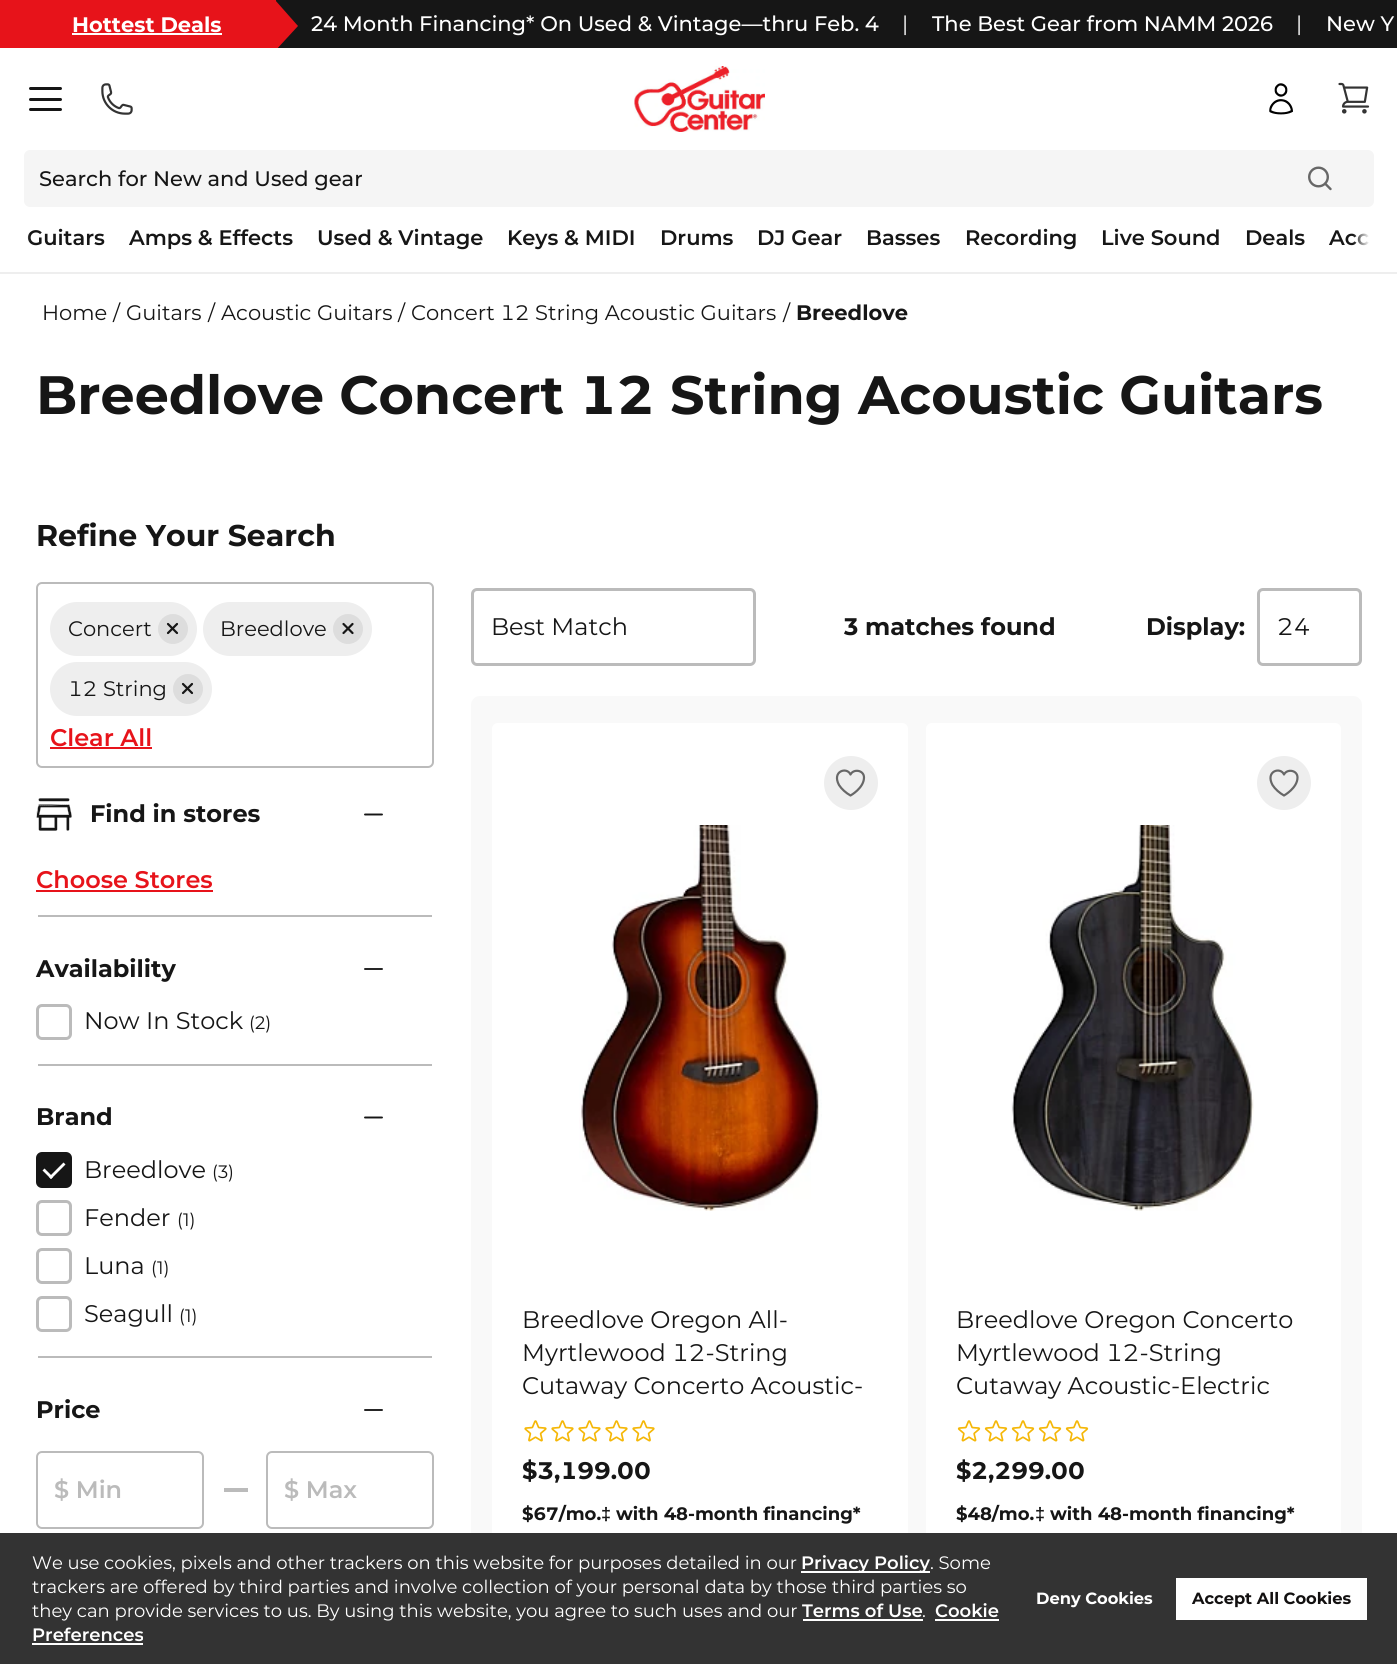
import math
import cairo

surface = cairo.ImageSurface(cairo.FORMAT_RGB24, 1397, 1664)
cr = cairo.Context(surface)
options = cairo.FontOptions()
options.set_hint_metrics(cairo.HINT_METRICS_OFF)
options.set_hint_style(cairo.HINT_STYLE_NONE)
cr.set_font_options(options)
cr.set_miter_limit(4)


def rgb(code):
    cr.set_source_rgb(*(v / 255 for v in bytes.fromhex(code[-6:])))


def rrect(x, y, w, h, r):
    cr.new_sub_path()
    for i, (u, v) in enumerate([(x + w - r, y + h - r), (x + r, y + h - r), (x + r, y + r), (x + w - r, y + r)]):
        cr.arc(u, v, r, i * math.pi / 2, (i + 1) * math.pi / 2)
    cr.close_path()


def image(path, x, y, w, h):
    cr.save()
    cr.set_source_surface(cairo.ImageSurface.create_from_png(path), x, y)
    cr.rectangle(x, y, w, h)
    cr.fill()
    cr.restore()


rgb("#ffffff")
cr.paint()
for x, y, w, h, color in [
    (276, 0, 1121, 48, "#161616"),
    (0, 0, 276, 48, "#e7131a"),
    (72, 33, 150, 2, "#ffffff"),
]:
    rgb(color)
    cr.rectangle(x, y, w, h)
    cr.fill()
cr.save()
cr.rectangle(0, 0, 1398, 48)
cr.clip()
rgb("#e7131a")
cr.new_path()
cr.move_to(275, 0)
cr.line_to(298, 26)
cr.line_to(275, 51)
cr.close_path()
cr.fill()
cr.restore()
rgb("#161616")
rrect(29, 87, 33, 3, 1.5)
cr.fill()
rrect(29, 98, 33, 3, 1.5)
cr.fill()
rrect(29, 108, 33, 3, 1.5)
cr.fill()
image("img/1.png", 101, 83, 32, 32)
image("img/2.png", 634, 66, 131, 66)
image("img/3.png", 1269, 83, 24, 32)
image("img/4.png", 1338, 82, 32, 32)
rgb("#f5f5f5")
rrect(24, 150, 1350, 57, 6)
cr.fill()
image("img/5.png", 1308, 166, 24, 25)
rgb("#eeeeee")
cr.rectangle(0, 272, 1397, 2)
cr.fill()
rrect(37, 583, 396, 184, 5)
rgb("#bbbbbb")
cr.stroke()
rgb("#eeeeee")
rrect(50, 602, 147, 54, 27)
cr.fill()
rgb("#dddddd")
cr.arc(173, 629, 15, 0, 2 * math.pi)
cr.fill()
cr.new_path()
cr.move_to(168, 633)
cr.line_to(177, 624)
cr.move_to(168, 624)
cr.line_to(177, 633)
rgb("#161616")
cr.set_line_width(2.2)
cr.set_line_cap(cairo.LINE_CAP_ROUND)
cr.set_line_join(cairo.LINE_JOIN_ROUND)
cr.stroke()
rgb("#eeeeee")
rrect(203, 602, 169, 54, 27)
cr.fill()
rgb("#dddddd")
cr.arc(348, 629, 15, 0, 2 * math.pi)
cr.fill()
cr.new_path()
cr.move_to(343.5, 633)
cr.line_to(352.5, 624)
cr.move_to(343.5, 624)
cr.line_to(352.5, 633)
rgb("#161616")
cr.stroke()
rgb("#eeeeee")
rrect(50, 662, 162, 54, 27)
cr.fill()
rgb("#dddddd")
cr.arc(188, 689, 15, 0, 2 * math.pi)
cr.fill()
cr.new_path()
cr.move_to(183, 693)
cr.line_to(192, 684)
cr.move_to(183, 684)
cr.line_to(192, 693)
rgb("#161616")
cr.stroke()
rgb("#e7131a")
cr.rectangle(50, 747, 102, 2)
cr.fill()
rgb("#bbbbbb")
cr.rectangle(38, 915, 394, 2)
cr.fill()
image("img/6.png", 36, 798, 36, 33)
cr.new_path()
cr.move_to(365, 814.5)
cr.line_to(382, 814.5)
rgb("#161616")
cr.set_line_width(1.9)
cr.stroke()
rgb("#e7131a")
cr.rectangle(36, 890, 177, 2)
cr.fill()
rgb("#bbbbbb")
cr.rectangle(38, 1064, 394, 2)
cr.fill()
cr.new_path()
cr.move_to(365, 969)
cr.line_to(382, 969)
rgb("#161616")
cr.stroke()
rrect(37.5, 1005.5, 33, 33, 4.5)
rgb("#bbbbbb")
cr.set_line_width(3)
cr.set_line_cap(cairo.LINE_CAP_BUTT)
cr.set_line_join(cairo.LINE_JOIN_MITER)
cr.stroke()
cr.rectangle(38, 1356, 394, 2)
cr.fill()
cr.new_path()
cr.move_to(365, 1117.5)
cr.line_to(382, 1117.5)
rgb("#161616")
cr.set_line_width(1.9)
cr.set_line_cap(cairo.LINE_CAP_ROUND)
cr.set_line_join(cairo.LINE_JOIN_ROUND)
cr.stroke()
rrect(37.5, 1153.5, 33, 33, 4.5)
cr.fill_preserve()
cr.set_line_width(3)
cr.set_line_cap(cairo.LINE_CAP_BUTT)
cr.set_line_join(cairo.LINE_JOIN_MITER)
cr.stroke()
rgb("#ffffff")
cr.new_path()
cr.move_to(63.5, 1162.5)
cr.line_to(65.5, 1164.5)
cr.line_to(51, 1179)
cr.line_to(49, 1177)
cr.close_path()
cr.fill()
cr.new_path()
cr.move_to(44.5, 1168.5)
cr.line_to(53, 1177)
cr.line_to(51, 1179)
cr.line_to(42.5, 1170.5)
cr.close_path()
cr.fill()
rrect(37.5, 1201.5, 33, 33, 4.5)
rgb("#bbbbbb")
cr.stroke()
rrect(37.5, 1249.5, 33, 33, 4.5)
cr.stroke()
rrect(37.5, 1297.5, 33, 33, 4.5)
cr.stroke()
cr.new_path()
cr.move_to(365, 1410)
cr.line_to(382, 1410)
rgb("#161616")
cr.set_line_width(1.9)
cr.set_line_cap(cairo.LINE_CAP_ROUND)
cr.set_line_join(cairo.LINE_JOIN_ROUND)
cr.stroke()
rrect(37, 1452, 166, 76, 5)
rgb("#bbbbbb")
cr.set_line_width(2)
cr.set_line_cap(cairo.LINE_CAP_BUTT)
cr.set_line_join(cairo.LINE_JOIN_MITER)
cr.stroke()
cr.rectangle(224, 1488, 24, 4)
cr.fill()
rrect(267, 1452, 166, 76, 5)
cr.stroke()
rrect(472.5, 589.5, 282, 75, 4.5)
cr.set_line_width(3)
cr.stroke()
rrect(1258.5, 589.5, 102, 75, 4.5)
cr.stroke()
rgb("#f9f9f9")
rrect(471, 696, 891, 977, 9)
cr.fill()
rgb("#ffffff")
rrect(492, 723, 416, 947, 6)
cr.fill()
rgb("#eeeeee")
cr.arc(851, 783, 27, 0, 2 * math.pi)
cr.fill()
cr.new_path()
cr.move_to(864, 777.5)
cr.curve_to(864, 770, 853.5, 768.5, 850.5, 774.5)
cr.curve_to(847, 766.5, 831.5, 771, 839, 785)
cr.curve_to(841.5, 789, 846, 793, 850.5, 795.5)
cr.curve_to(850.5, 795.5, 864, 788, 864, 777.5)
cr.close_path()
rgb("#676767")
cr.set_line_width(2.2)
cr.set_line_cap(cairo.LINE_CAP_ROUND)
cr.set_line_join(cairo.LINE_JOIN_ROUND)
cr.stroke()
image("img/7.png", 579, 825, 243, 386)
image("img/8.png", 524, 1420, 23, 22)
image("img/8.png", 551, 1420, 23, 22)
image("img/8.png", 578, 1420, 23, 22)
image("img/8.png", 605, 1420, 23, 22)
image("img/8.png", 632, 1420, 23, 22)
rgb("#ffffff")
rrect(926, 723, 415, 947, 6)
cr.fill()
rgb("#eeeeee")
cr.arc(1284, 783, 27, 0, 2 * math.pi)
cr.fill()
cr.new_path()
cr.move_to(1297.5, 777.5)
cr.curve_to(1297.5, 770, 1287, 768.5, 1284, 774.5)
cr.curve_to(1280.5, 766.5, 1265, 771, 1272.5, 785)
cr.curve_to(1275, 789, 1279.5, 793, 1284, 795.5)
cr.curve_to(1284, 795.5, 1297.5, 788, 1297.5, 777.5)
cr.close_path()
rgb("#676767")
cr.stroke()
image("img/9.png", 1011, 825, 243, 386)
image("img/10.png", 957, 1420, 24, 22)
image("img/10.png", 984, 1420, 24, 22)
image("img/10.png", 1011, 1420, 24, 22)
image("img/10.png", 1038, 1420, 24, 22)
image("img/10.png", 1065, 1420, 24, 22)
for x, y, w, h, color in [
    (0, 1533, 1397, 131, "#333333"),
    (801, 1571, 129, 2, "#ffffff"),
    (803, 1619, 120, 2, "#ffffff"),
    (935, 1619, 64, 2, "#ffffff"),
    (32, 1643, 111, 2, "#ffffff"),
    (1176, 1578, 191, 42, "#ffffff"),
]:
    rgb(color)
    cr.rectangle(x, y, w, h)
    cr.fill()
cr.select_font_face("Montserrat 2", cairo.FONT_SLANT_NORMAL, cairo.FONT_WEIGHT_BOLD)
cr.set_font_size(21)
cr.move_to(72, 32)
cr.show_text("Hottest Deals")
cr.select_font_face("Montserrat 2 Medium")
cr.move_to(311, 31)
cr.show_text("24 Month Financing* On Used & Vintage—thru Feb. 4")
cr.select_font_face("Montserrat 2")
cr.move_to(902, 31)
cr.show_text("|")
cr.select_font_face("Montserrat 2 Medium")
cr.move_to(932, 31)
cr.show_text("The Best Gear from NAMM 2026")
cr.select_font_face("Montserrat 2")
cr.move_to(1296, 31)
cr.show_text("|")
cr.select_font_face("Montserrat 2 Medium")
cr.move_to(1326, 31)
cr.show_text("New Y")
cr.select_font_face("Montserrat Medium")
rgb("#161616")
cr.move_to(39, 186)
cr.show_text("Search for New and Used gear")
cr.select_font_face("Montserrat SemiBold")
for x, y, s in [
    (27, 245, "Guitars"),
    (129, 245, "Amps & Effects"),
    (317, 245, "Used & Vintage"),
    (507, 245, "Keys & MIDI"),
    (660, 245, "Drums"),
    (757, 245, "DJ Gear"),
    (866, 245, "Basses"),
    (965, 245, "Recording"),
    (1101, 245, "Live Sound"),
    (1245, 245, "Deals"),
    (1329, 245, "Acc"),
]:
    cr.move_to(x, y)
    cr.show_text(s)
gradient = cairo.LinearGradient(0, 234, 30, 234)
gradient.add_color_stop_rgba(0.67, 1, 1, 1, 0.9)
gradient.add_color_stop_rgba(1, 1, 1, 1, 0)
cr.set_source(gradient)
cr.rectangle(27, 233, 3, 10)
cr.fill()
gradient = cairo.LinearGradient(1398, 234, 1353, 234)
gradient.add_color_stop_rgba(0.67, 1, 1, 1, 0.9)
gradient.add_color_stop_rgba(1, 1, 1, 1, 0)
cr.set_source(gradient)
cr.rectangle(1353, 233, 16, 13)
cr.fill()
cr.select_font_face("Montserrat")
rgb("#161616")
for x, y, s in [
    (42, 320, "Home"),
    (113, 320, "/"),
    (126, 320, "Guitars"),
    (208, 320, "/"),
    (221, 320, "Acoustic Guitars"),
    (398, 320, "/"),
]:
    cr.move_to(x, y)
    cr.show_text(s)
cr.select_font_face("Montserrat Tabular")
cr.move_to(411, 320)
cr.show_text("Concert 12 String Acoustic Guitars")
cr.select_font_face("Montserrat")
cr.move_to(783, 320)
cr.show_text("/")
cr.select_font_face("Montserrat", cairo.FONT_SLANT_NORMAL, cairo.FONT_WEIGHT_BOLD)
cr.move_to(796, 320)
cr.show_text("Breedlove")
cr.select_font_face("Montserrat Tabular", cairo.FONT_SLANT_NORMAL, cairo.FONT_WEIGHT_BOLD)
cr.set_font_size(54)
cr.move_to(36, 414)
cr.show_text("Breedlove Concert 12 String Acoustic Guitars")
cr.select_font_face("Montserrat", cairo.FONT_SLANT_NORMAL, cairo.FONT_WEIGHT_BOLD)
cr.set_font_size(30)
cr.move_to(36, 546)
cr.show_text("Refine Your Search")
cr.select_font_face("Montserrat")
cr.set_font_size(21)
cr.move_to(68, 636)
cr.show_text("Concert")
cr.move_to(220, 636)
cr.show_text("Breedlove")
cr.select_font_face("Montserrat Tabular")
cr.move_to(68, 696)
cr.show_text("12 String")
cr.select_font_face("Montserrat SemiBold")
cr.set_font_size(24)
rgb("#e7131a")
cr.move_to(50, 746)
cr.show_text("Clear All")
cr.select_font_face("Montserrat", cairo.FONT_SLANT_NORMAL, cairo.FONT_WEIGHT_BOLD)
rgb("#161616")
cr.move_to(90, 822)
cr.show_text("Find in stores")
cr.select_font_face("Montserrat SemiBold")
rgb("#e7131a")
cr.move_to(36, 888)
cr.show_text("Choose Stores")
cr.select_font_face("Montserrat", cairo.FONT_SLANT_NORMAL, cairo.FONT_WEIGHT_BOLD)
rgb("#161616")
cr.move_to(36, 977)
cr.show_text("Availability")
cr.select_font_face("Montserrat")
cr.move_to(84, 1029)
cr.show_text("Now In Stock")
cr.set_font_size(18)
cr.move_to(249, 1029)
cr.show_text("(2)")
cr.select_font_face("Montserrat", cairo.FONT_SLANT_NORMAL, cairo.FONT_WEIGHT_BOLD)
cr.set_font_size(24)
cr.move_to(36, 1125)
cr.show_text("Brand")
cr.select_font_face("Montserrat")
cr.move_to(84, 1178)
cr.show_text("Breedlove")
cr.set_font_size(18)
cr.move_to(212, 1178)
cr.show_text("(3)")
cr.set_font_size(24)
cr.move_to(84, 1226)
cr.show_text("Fender")
cr.set_font_size(18)
cr.move_to(177, 1226)
cr.show_text("(1)")
cr.set_font_size(24)
cr.move_to(84, 1274)
cr.show_text("Luna")
cr.set_font_size(18)
cr.move_to(151, 1274)
cr.show_text("(1)")
cr.set_font_size(24)
cr.move_to(84, 1322)
cr.show_text("Seagull")
cr.set_font_size(18)
cr.move_to(179, 1322)
cr.show_text("(1)")
cr.select_font_face("Montserrat", cairo.FONT_SLANT_NORMAL, cairo.FONT_WEIGHT_BOLD)
cr.set_font_size(24)
cr.move_to(36, 1418)
cr.show_text("Price")
cr.select_font_face("Montserrat SemiBold")
rgb("#bbbbbb")
cr.move_to(54, 1498)
cr.show_text("$ Min")
cr.move_to(284, 1498)
cr.show_text("$ Max")
cr.select_font_face("Montserrat")
rgb("#161616")
cr.move_to(491, 635)
cr.show_text("Best Match")
cr.select_font_face("Montserrat", cairo.FONT_SLANT_NORMAL, cairo.FONT_WEIGHT_BOLD)
cr.move_to(844, 635)
cr.show_text("3 matches found")
cr.move_to(1146, 635)
cr.show_text("Display:")
cr.select_font_face("Montserrat Tabular")
cr.move_to(1277, 635)
cr.show_text("24")
cr.select_font_face("Montserrat")
cr.move_to(522, 1328)
cr.show_text("Breedlove Oregon All-")
cr.select_font_face("Montserrat Tabular")
cr.move_to(522, 1361)
cr.show_text("Myrtlewood 12-String")
cr.select_font_face("Montserrat")
cr.move_to(522, 1394)
cr.show_text("Cutaway Concerto Acoustic-")
cr.select_font_face("Montserrat Tabular", cairo.FONT_SLANT_NORMAL, cairo.FONT_WEIGHT_BOLD)
cr.move_to(522, 1479)
cr.show_text("$3,199.00")
cr.set_font_size(18)
cr.move_to(522, 1520)
cr.show_text("$67/mo.")
cr.select_font_face("Liberation Sans", cairo.FONT_SLANT_NORMAL, cairo.FONT_WEIGHT_BOLD)
cr.move_to(601, 1520)
cr.show_text("‡")
cr.select_font_face("Montserrat", cairo.FONT_SLANT_NORMAL, cairo.FONT_WEIGHT_BOLD)
cr.move_to(616, 1520)
cr.show_text("with 48-month financing*")
cr.select_font_face("Montserrat")
cr.set_font_size(24)
cr.move_to(956, 1328)
cr.show_text("Breedlove Oregon Concerto")
cr.select_font_face("Montserrat Tabular")
cr.move_to(956, 1361)
cr.show_text("Myrtlewood 12-String")
cr.select_font_face("Montserrat")
cr.move_to(956, 1394)
cr.show_text("Cutaway Acoustic-Electric")
cr.select_font_face("Montserrat Tabular", cairo.FONT_SLANT_NORMAL, cairo.FONT_WEIGHT_BOLD)
cr.move_to(956, 1479)
cr.show_text("$2,299.00")
cr.select_font_face("Montserrat", cairo.FONT_SLANT_NORMAL, cairo.FONT_WEIGHT_BOLD)
cr.set_font_size(18)
cr.move_to(956, 1520)
cr.show_text("$48/mo.")
cr.select_font_face("Liberation Sans", cairo.FONT_SLANT_NORMAL, cairo.FONT_WEIGHT_BOLD)
cr.move_to(1035, 1520)
cr.show_text("‡")
cr.select_font_face("Montserrat", cairo.FONT_SLANT_NORMAL, cairo.FONT_WEIGHT_BOLD)
cr.move_to(1050, 1520)
cr.show_text("with 48-month financing*")
cr.select_font_face("Montserrat")
rgb("#ffffff")
cr.move_to(32, 1569)
cr.show_text("We use cookies, pixels and other trackers on this website for purposes detailed in our")
cr.select_font_face("Montserrat SemiBold")
cr.move_to(801, 1569)
cr.show_text("Privacy Policy")
cr.select_font_face("Montserrat")
for x, y, s in [
    (930, 1569, ". Some"),
    (32, 1593, "trackers are offered by third parties and involve collection of your personal data by those third parties so"),
    (32, 1617, "they can provide services to us. By using this website, you agree to such uses and our"),
]:
    cr.move_to(x, y)
    cr.show_text(s)
cr.select_font_face("Montserrat SemiBold")
cr.move_to(802, 1617)
cr.show_text("Terms of Use")
cr.select_font_face("Montserrat")
cr.move_to(922, 1617)
cr.show_text(".")
cr.select_font_face("Montserrat SemiBold")
cr.move_to(935, 1617)
cr.show_text("Cookie")
cr.move_to(32, 1641)
cr.show_text("Preferences")
cr.select_font_face("Montserrat", cairo.FONT_SLANT_NORMAL, cairo.FONT_WEIGHT_BOLD)
cr.set_font_size(16.25)
cr.move_to(1036, 1604)
cr.show_text("Deny Cookies")
rgb("#121010")
cr.move_to(1192, 1604)
cr.show_text("Accept All Cookies")
surface.write_to_png("page.png")
